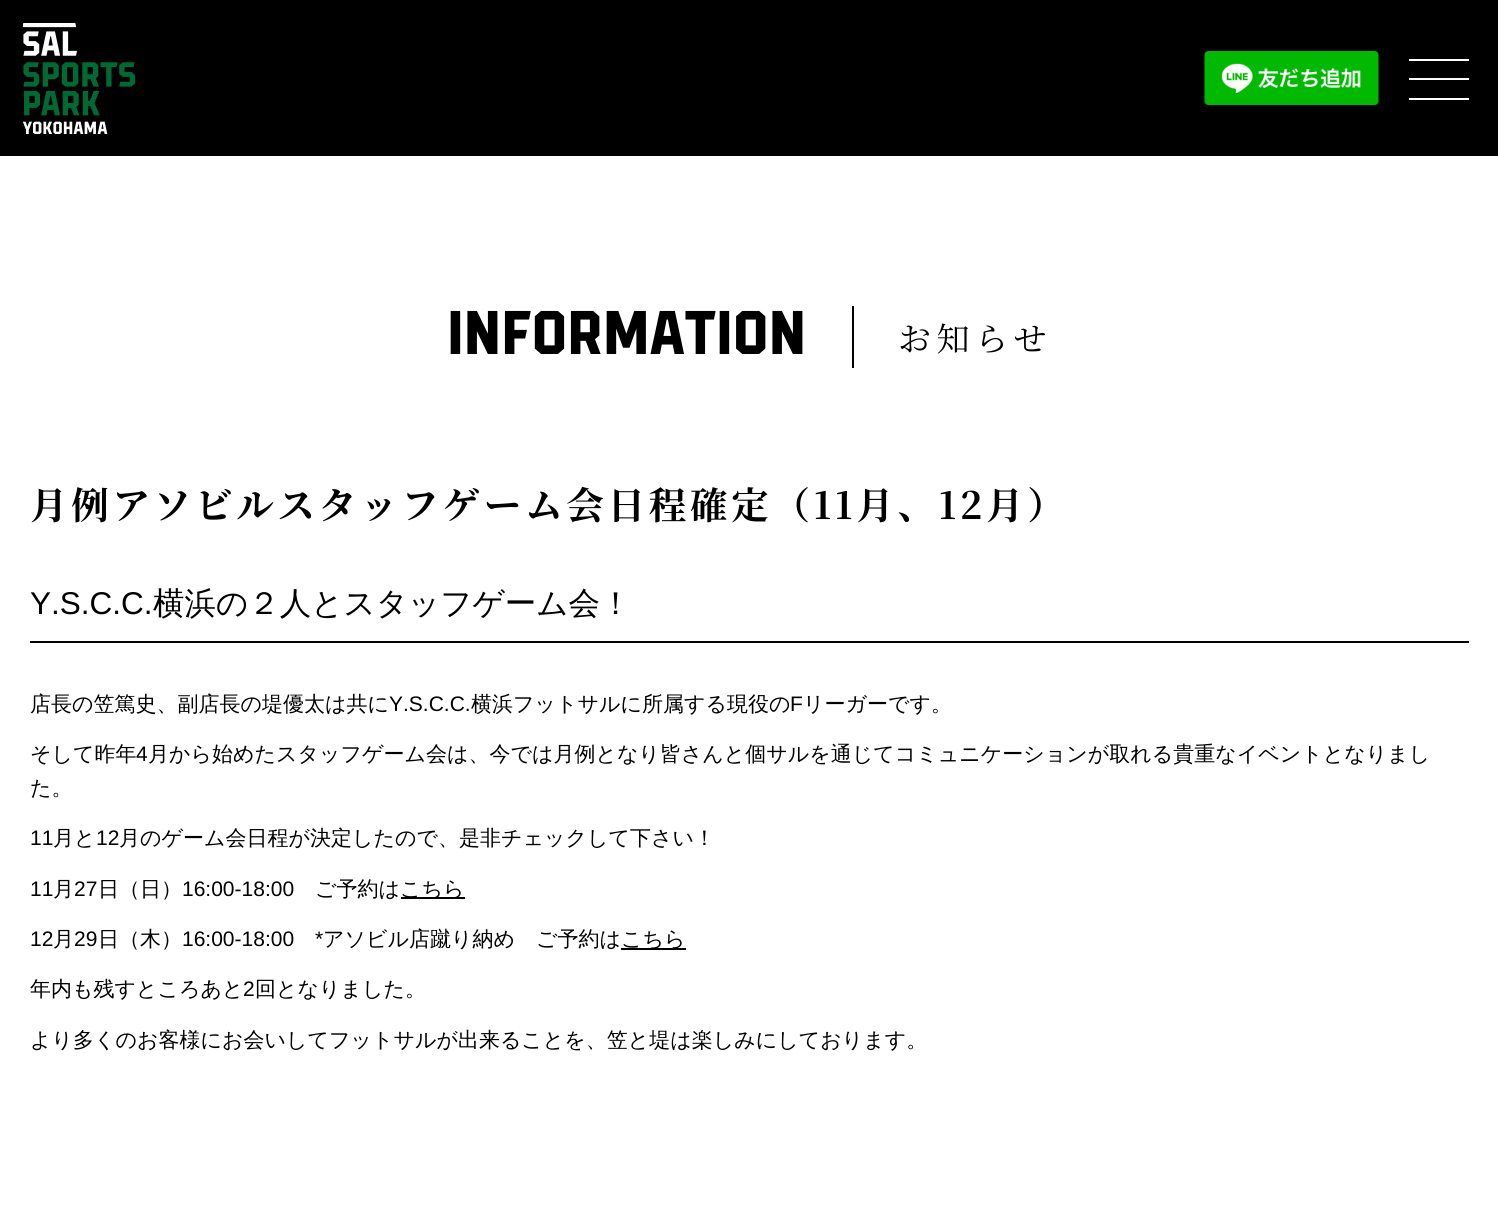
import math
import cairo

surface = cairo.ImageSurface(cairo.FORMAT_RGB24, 1498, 1228)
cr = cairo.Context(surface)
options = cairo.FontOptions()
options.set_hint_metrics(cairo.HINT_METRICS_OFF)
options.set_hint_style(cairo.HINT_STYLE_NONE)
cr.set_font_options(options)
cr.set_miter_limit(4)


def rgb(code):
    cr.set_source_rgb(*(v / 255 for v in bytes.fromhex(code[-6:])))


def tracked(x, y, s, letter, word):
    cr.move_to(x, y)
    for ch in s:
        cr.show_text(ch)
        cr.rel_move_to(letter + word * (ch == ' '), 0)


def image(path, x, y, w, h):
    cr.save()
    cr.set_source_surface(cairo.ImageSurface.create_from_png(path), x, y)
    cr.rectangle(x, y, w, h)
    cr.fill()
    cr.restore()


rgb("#ffffff")
cr.paint()
rgb("#000000")
cr.rectangle(0, 0, 1498, 156)
cr.fill()
image("img/1.png", 23, 23, 112, 111)
image("img/2.png", 1204, 51, 175, 54)
for x, y, w, h, color in [
    (1409, 59, 60, 2, "#ffffff"),
    (1409, 78, 60, 2, "#ffffff"),
    (1409, 98, 60, 2, "#ffffff"),
    (852, 306, 2, 62, "#000000"),
    (30, 641, 1439, 2, "#000000"),
    (401, 897, 64, 2, "#000000"),
    (621, 948, 65, 2, "#000000"),
]:
    rgb(color)
    cr.rectangle(x, y, w, h)
    cr.fill()
cr.select_font_face("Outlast")
cr.set_font_size(61.5)
cr.move_to(447, 354)
cr.show_text("INFORMATION")
cr.select_font_face("Noto Serif JP")
cr.set_font_size(33)
tracked(898, 351, "お知らせ", 5.5, 0)
cr.select_font_face("Noto Serif JP", cairo.FONT_SLANT_NORMAL, cairo.FONT_WEIGHT_BOLD)
cr.set_font_size(37.5)
tracked(30, 519, "月例アソビルスタッフゲーム会日程確定（11月、12月）", 3.75, 0)
cr.select_font_face("Liberation Sans")
cr.set_font_size(31.5)
cr.move_to(30, 614)
cr.show_text("Y.S.C.C.")
cr.select_font_face("WenQuanYi Zen Hei Medium")
cr.move_to(153, 614)
cr.show_text("横浜の２人とスタッフゲーム会！")
cr.set_font_size(21)
cr.move_to(30, 711)
cr.show_text("店長の笠篤史、副店長の堤優太は共に")
cr.select_font_face("Liberation Sans")
cr.move_to(389, 711)
cr.show_text("Y.S.C.C.")
cr.select_font_face("WenQuanYi Zen Hei Medium")
cr.move_to(471, 711)
cr.show_text("横浜フットサルに所属する現役の")
cr.select_font_face("Liberation Sans")
cr.move_to(790, 711)
cr.show_text("F")
cr.select_font_face("WenQuanYi Zen Hei Medium")
cr.move_to(803, 711)
cr.show_text("リーガーです。")
cr.move_to(30, 761)
cr.show_text("そして昨年")
cr.select_font_face("Liberation Sans")
cr.move_to(136, 761)
cr.show_text("4")
cr.select_font_face("WenQuanYi Zen Hei Medium")
cr.move_to(148, 761)
cr.show_text("月から始めたスタッフゲーム会は、今では月例となり皆さんと個サルを通じてコミュニケーションが取れる貴重なイベントとなりまし")
cr.move_to(30, 795)
cr.show_text("た。")
cr.select_font_face("Liberation Sans")
cr.move_to(30, 845)
cr.show_text("11")
cr.select_font_face("WenQuanYi Zen Hei Medium")
cr.move_to(53, 845)
cr.show_text("月と")
cr.select_font_face("Liberation Sans")
cr.move_to(96, 845)
cr.show_text("12")
cr.select_font_face("WenQuanYi Zen Hei Medium")
cr.move_to(119, 845)
cr.show_text("月のゲーム会日程が決定したので、是非チェックして下さい！")
cr.select_font_face("Liberation Sans")
cr.move_to(30, 896)
cr.show_text("11")
cr.select_font_face("WenQuanYi Zen Hei Medium")
cr.move_to(53, 896)
cr.show_text("月")
cr.select_font_face("Liberation Sans")
cr.move_to(74, 896)
cr.show_text("27")
cr.select_font_face("WenQuanYi Zen Hei Medium")
cr.move_to(98, 896)
cr.show_text("日（日）")
cr.select_font_face("Liberation Sans")
cr.move_to(182, 896)
cr.show_text("16:00-18:00")
cr.select_font_face("WenQuanYi Zen Hei Medium")
cr.move_to(315, 896)
cr.show_text("ご予約は")
cr.move_to(400, 896)
cr.show_text("こちら")
cr.select_font_face("Liberation Sans")
cr.move_to(30, 946)
cr.show_text("12")
cr.select_font_face("WenQuanYi Zen Hei Medium")
cr.move_to(53, 946)
cr.show_text("月")
cr.select_font_face("Liberation Sans")
cr.move_to(74, 946)
cr.show_text("29")
cr.select_font_face("WenQuanYi Zen Hei Medium")
cr.move_to(98, 946)
cr.show_text("日（木）")
cr.select_font_face("Liberation Sans")
cr.move_to(182, 946)
cr.show_text("16:00-18:00")
cr.move_to(315, 946)
cr.show_text("*")
cr.select_font_face("WenQuanYi Zen Hei Medium")
for x, y, s in [
    (323, 946, "アソビル店蹴り納め　ご予約は"),
    (621, 946, "こちら"),
    (30, 996, "年内も残すところあと"),
]:
    cr.move_to(x, y)
    cr.show_text(s)
cr.select_font_face("Liberation Sans")
cr.move_to(243, 996)
cr.show_text("2")
cr.select_font_face("WenQuanYi Zen Hei Medium")
cr.move_to(255, 996)
cr.show_text("回となりました。")
cr.move_to(30, 1047)
cr.show_text("より多くのお客様にお会いしてフットサルが出来ることを、笠と堤は楽しみにしております。")
surface.write_to_png("page.png")
